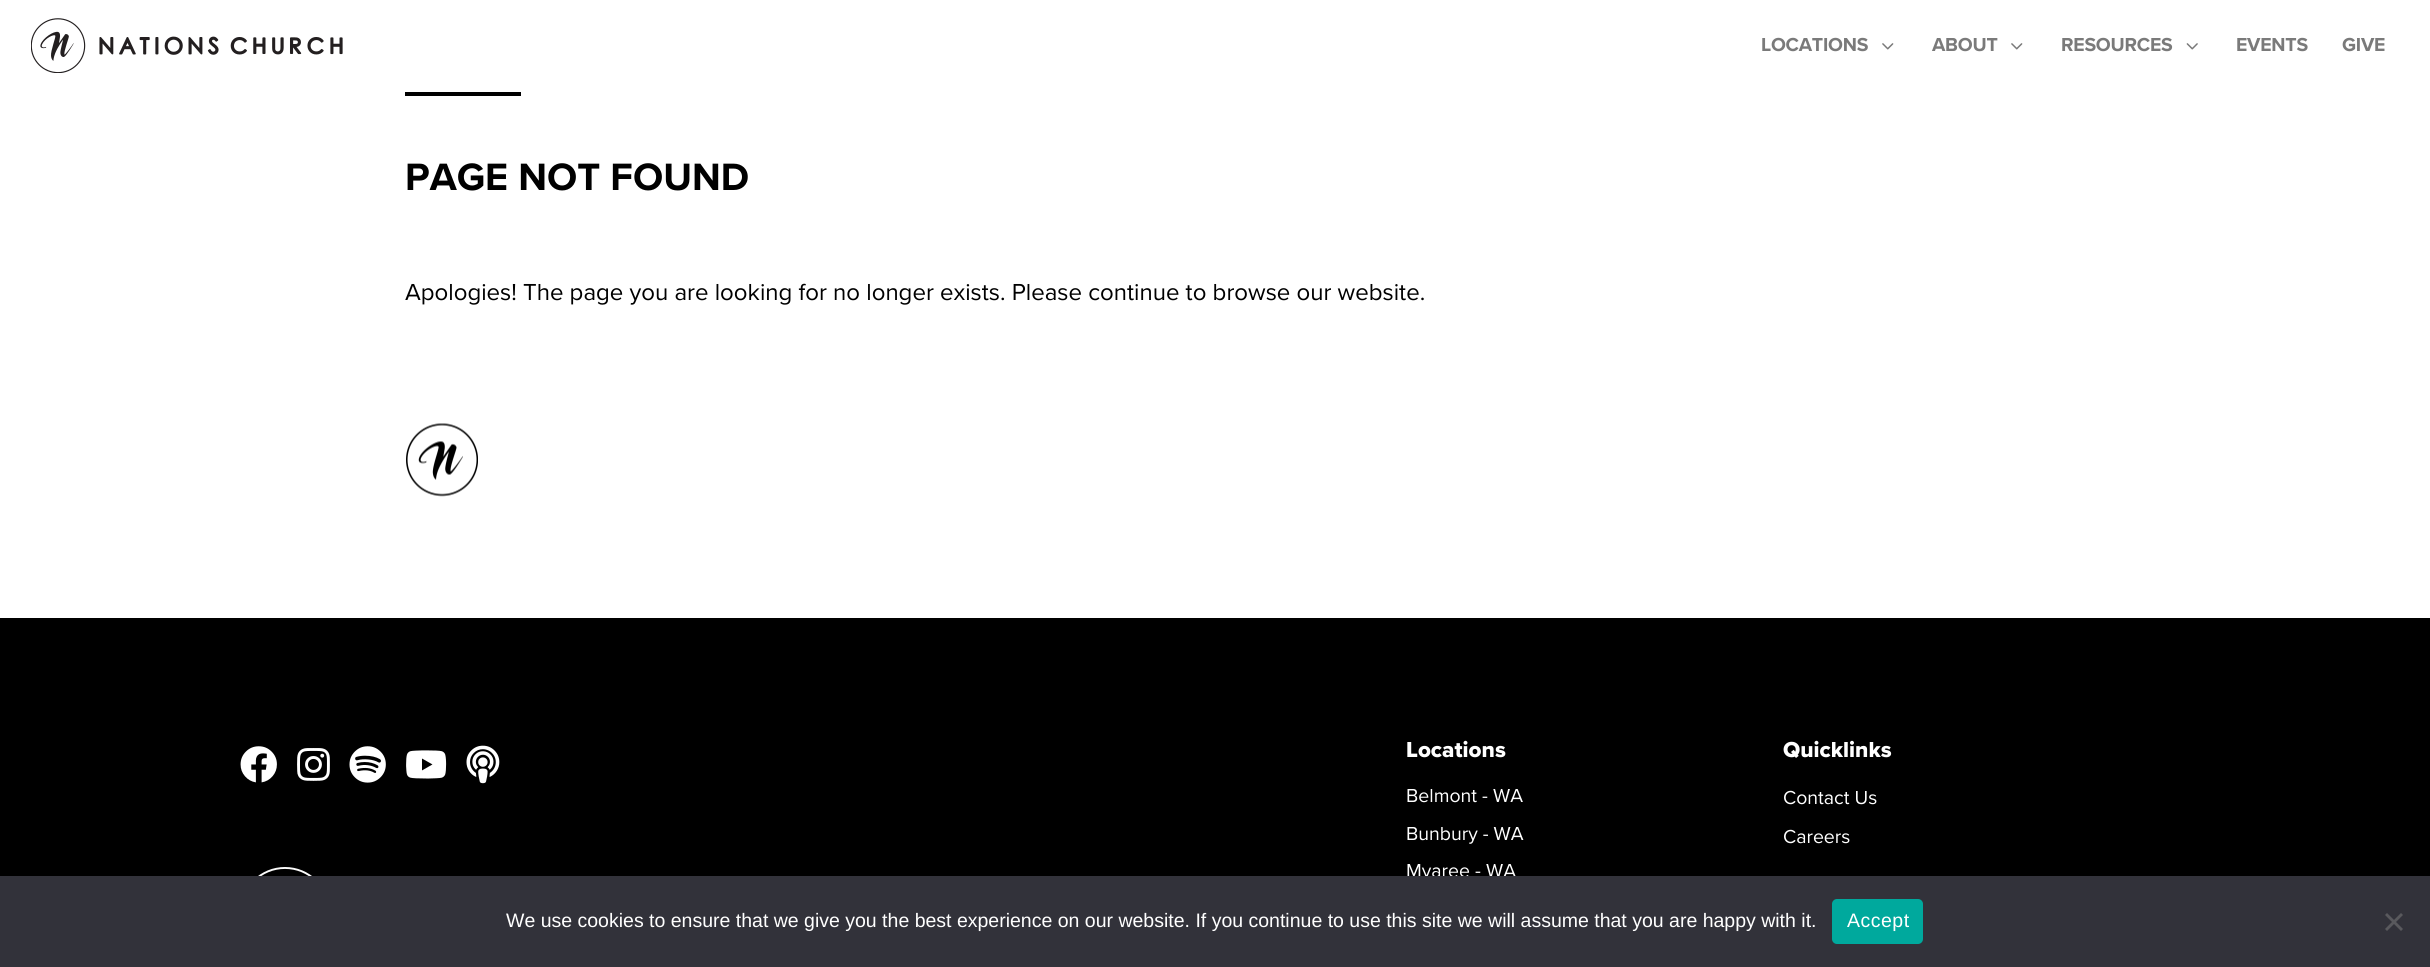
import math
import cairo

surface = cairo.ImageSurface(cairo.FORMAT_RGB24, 2430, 967)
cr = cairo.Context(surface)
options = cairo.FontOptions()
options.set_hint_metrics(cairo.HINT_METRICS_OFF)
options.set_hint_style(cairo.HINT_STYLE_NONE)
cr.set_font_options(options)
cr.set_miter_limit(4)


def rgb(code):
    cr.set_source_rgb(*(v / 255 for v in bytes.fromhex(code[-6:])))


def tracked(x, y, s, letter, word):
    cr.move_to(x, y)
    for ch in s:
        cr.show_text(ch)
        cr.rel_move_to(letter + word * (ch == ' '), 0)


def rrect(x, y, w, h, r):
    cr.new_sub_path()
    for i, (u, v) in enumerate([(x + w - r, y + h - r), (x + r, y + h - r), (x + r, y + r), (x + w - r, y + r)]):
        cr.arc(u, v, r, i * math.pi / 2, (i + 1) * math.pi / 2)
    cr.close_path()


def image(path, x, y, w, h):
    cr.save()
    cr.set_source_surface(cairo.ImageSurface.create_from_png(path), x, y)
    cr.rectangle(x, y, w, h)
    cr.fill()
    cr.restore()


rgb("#ffffff")
cr.paint()
image("img/1.png", 31, 18, 312, 55)
image("img/2.png", 1882, 43, 12, 7)
image("img/2.png", 2011, 43, 12, 7)
image("img/3.png", 2186, 43, 12, 7)
rgb("#000000")
cr.rectangle(405, 92, 116, 4)
cr.fill()
image("img/4.png", 406, 423, 72, 74)
cr.rectangle(0, 618, 2430, 258)
cr.fill()
image("img/5.png", 240, 746, 37, 37)
image("img/6.png", 297, 748, 33, 33)
image("img/7.png", 349, 746, 37, 37)
image("img/8.png", 406, 750, 41, 29)
image("img/9.png", 466, 745, 34, 39)
image("img/10.png", 258, 867, 54, 9)
cr.select_font_face("Proxima Nova", cairo.FONT_SLANT_NORMAL, cairo.FONT_WEIGHT_BOLD)
cr.set_font_size(19.5)
rgb("#7a7a7a")
for x, y, s in [
    (1761, 51, "LOCATIONS"),
    (1932, 51, "ABOUT"),
    (2061, 51, "RESOURCES"),
    (2236, 51, "EVENTS"),
    (2342, 51, "GIVE"),
]:
    tracked(x, y, s, -0.25, 0)
cr.set_font_size(39.5)
rgb("#000000")
cr.move_to(405, 190)
cr.show_text("PAGE NOT FOUND")
cr.select_font_face("Proxima Nova")
cr.set_font_size(24)
cr.move_to(405, 300)
cr.show_text("Apologies! The page you are looking for no longer exists. Please continue to browse our website.")
cr.select_font_face("Proxima Nova ExtraBold")
cr.set_font_size(22.5)
rgb("#ffffff")
cr.move_to(1406, 757)
cr.show_text("Locations")
cr.select_font_face("Proxima Nova")
cr.set_font_size(19.5)
for x, y, s in [
    (1406, 802, "Belmont - WA"),
    (1406, 840, "Bunbury - WA"),
    (1406, 877, "Myaree - WA"),
]:
    cr.move_to(x, y)
    cr.show_text(s)
cr.select_font_face("Proxima Nova ExtraBold")
cr.set_font_size(22.5)
cr.move_to(1783, 757)
cr.show_text("Quicklinks")
cr.select_font_face("Proxima Nova")
cr.set_font_size(19.5)
cr.move_to(1783, 804)
cr.show_text("Contact Us")
cr.move_to(1783, 843)
cr.show_text("Careers")
rgb("#32323a")
cr.rectangle(0, 876, 2430, 91)
cr.fill()
cr.select_font_face("Liberation Sans")
rgb("#ffffff")
cr.move_to(506, 927)
cr.show_text("We use cookies to ensure that we give you the best experience on our website. If you continue to use this site we will assume that you are happy with it.")
rgb("#00a99d")
rrect(1832, 899, 91, 45, 5)
cr.fill()
rgb("#ffffff")
tracked(1847, 927, "Accept", 0.5, 0)
rgb("#59595d")
cr.new_path()
cr.move_to(2401, 913)
cr.line_to(2403, 915)
cr.line_to(2387, 931)
cr.line_to(2385, 929)
cr.close_path()
cr.fill()
cr.new_path()
cr.move_to(2385, 915)
cr.line_to(2387, 913)
cr.line_to(2403, 929)
cr.line_to(2401, 931)
cr.close_path()
cr.fill()
surface.write_to_png("page.png")
